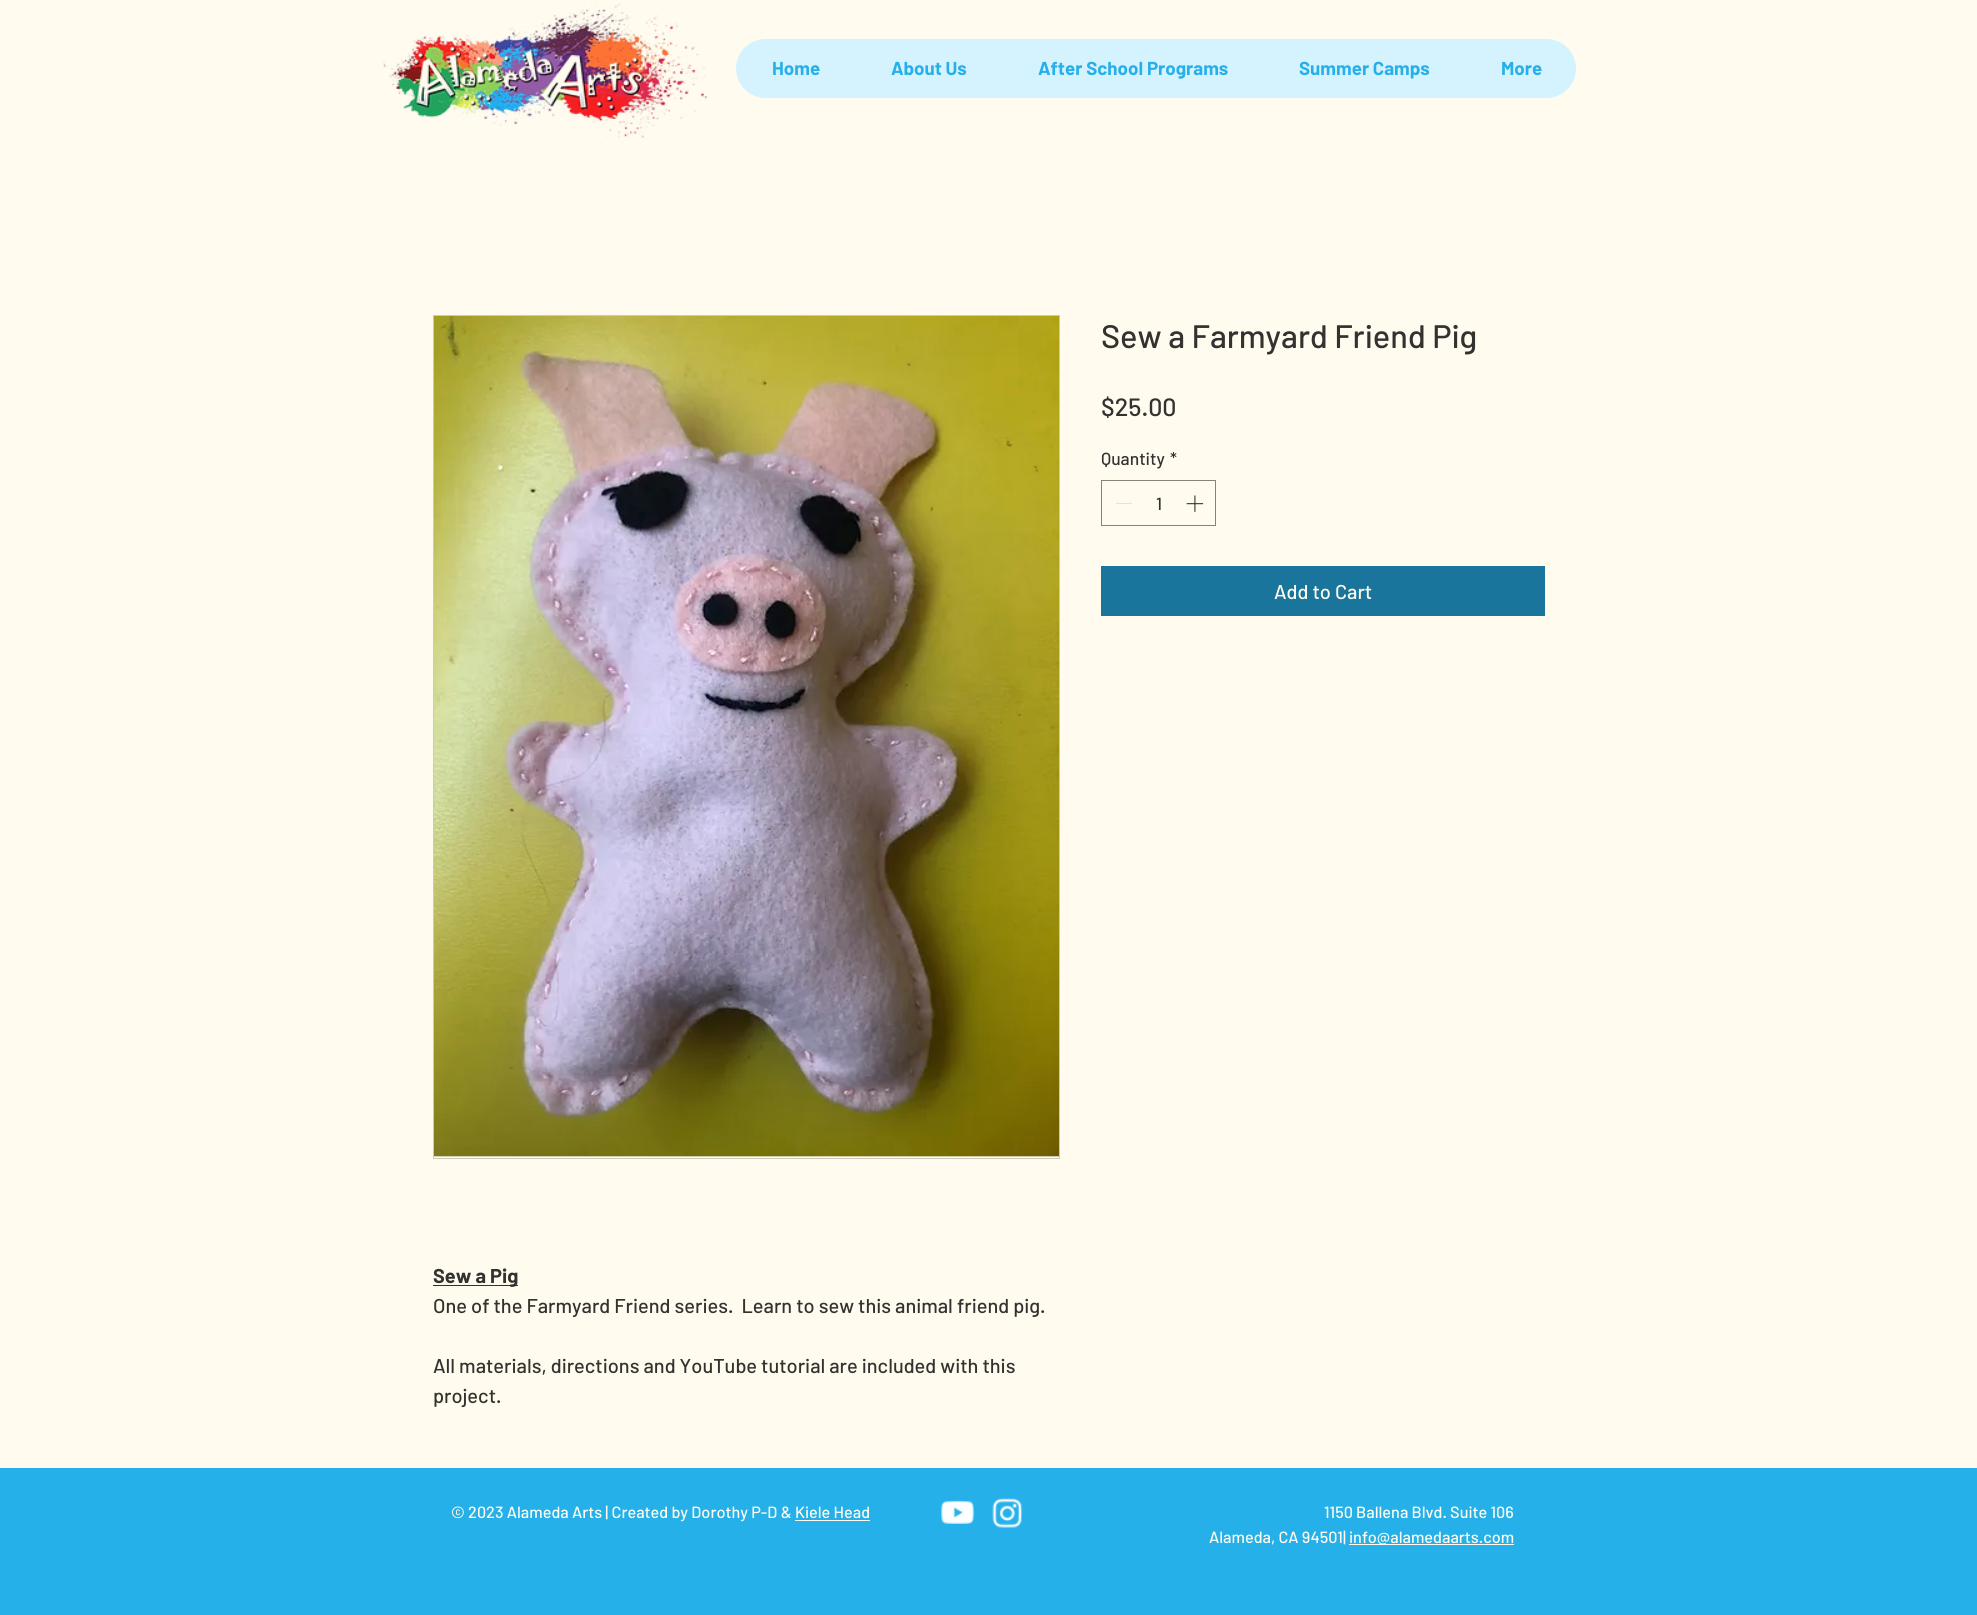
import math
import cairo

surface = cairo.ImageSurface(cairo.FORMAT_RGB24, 1977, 1615)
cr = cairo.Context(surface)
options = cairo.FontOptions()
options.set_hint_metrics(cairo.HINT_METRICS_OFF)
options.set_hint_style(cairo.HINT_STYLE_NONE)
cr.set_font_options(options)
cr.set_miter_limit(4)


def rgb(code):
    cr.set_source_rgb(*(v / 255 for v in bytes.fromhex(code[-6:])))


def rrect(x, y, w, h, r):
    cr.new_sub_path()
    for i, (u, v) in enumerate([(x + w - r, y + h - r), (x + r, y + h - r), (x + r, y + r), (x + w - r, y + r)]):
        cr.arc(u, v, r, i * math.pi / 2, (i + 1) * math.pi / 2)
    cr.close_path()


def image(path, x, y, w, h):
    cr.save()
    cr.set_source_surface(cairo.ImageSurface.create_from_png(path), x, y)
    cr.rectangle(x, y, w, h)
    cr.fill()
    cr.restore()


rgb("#fffcef")
cr.paint()
image("img/1.png", 382, 1, 326, 137)
rgb("#d5f2ff")
rrect(736, 39, 840, 59, 29.5)
cr.fill()
cr.rectangle(1101.5, 480.5, 114, 45)
rgb("#85837c")
cr.set_line_width(1)
cr.stroke()
rgb("#e3e2db")
cr.rectangle(1116, 503, 16, 1)
cr.fill()
image("img/2.png", 1186, 495, 18, 17)
rgb("#19759b")
cr.rectangle(1101, 566, 444, 50)
cr.fill()
cr.rectangle(433.5, 315.5, 626, 843)
rgb("#cccabf")
cr.stroke()
image("img/3.png", 434, 316, 625, 841)
for x, y, w, h, color in [
    (433, 1285, 85, 1, "#333230"),
    (0, 1468, 1977, 147, "#26b0e9"),
    (795, 1520, 75, 1, "#fffcef"),
]:
    rgb(color)
    cr.rectangle(x, y, w, h)
    cr.fill()
image("img/4.png", 941, 1500, 33, 24)
image("img/5.png", 992, 1498, 31, 30)
cr.rectangle(1349, 1544, 165, 1)
cr.fill()
cr.select_font_face("Barlow", cairo.FONT_SLANT_NORMAL, cairo.FONT_WEIGHT_BOLD)
cr.set_font_size(18.75)
rgb("#26b0e9")
for x, y, s in [
    (772, 75, "Home"),
    (891, 75, "About Us"),
    (1038, 75, "After School Programs"),
    (1299, 75, "Summer Camps"),
    (1501, 75, "More"),
]:
    cr.move_to(x, y)
    cr.show_text(s)
cr.select_font_face("Barlow Medium")
cr.set_font_size(32.5)
rgb("#333230")
cr.move_to(1101, 348)
cr.show_text("Sew a Farmyard Friend Pig")
cr.set_font_size(25)
cr.move_to(1101, 416)
cr.show_text("$25.00")
cr.set_font_size(17.5)
for x, y, s in [
    (1101, 465, "Quantity"),
    (1170, 465, "*"),
    (1156, 510, "1"),
]:
    cr.move_to(x, y)
    cr.show_text(s)
cr.set_font_size(20)
rgb("#fffcef")
cr.move_to(1274, 599)
cr.show_text("Add to Cart")
cr.select_font_face("Barlow", cairo.FONT_SLANT_NORMAL, cairo.FONT_WEIGHT_BOLD)
rgb("#333230")
cr.move_to(433, 1283)
cr.show_text("Sew a Pig")
cr.select_font_face("Barlow Medium")
for x, y, s in [
    (433, 1313, "One of the Farmyard Friend series.  Learn to sew this animal friend pig."),
    (433, 1373, "All materials, directions and YouTube tutorial are included with this"),
    (433, 1403, "project."),
]:
    cr.move_to(x, y)
    cr.show_text(s)
cr.set_font_size(16.25)
rgb("#fffcef")
for x, y, s in [
    (451, 1518, "© 2023 Alameda Arts | Created by Dorothy P-D & Kiele Head"),
    (1324, 1518, "1150 Ballena Blvd. Suite 106"),
    (1209, 1543, "Alameda, CA 94501|"),
    (1349, 1543, "info@alamedaarts.com"),
]:
    cr.move_to(x, y)
    cr.show_text(s)
surface.write_to_png("page.png")
